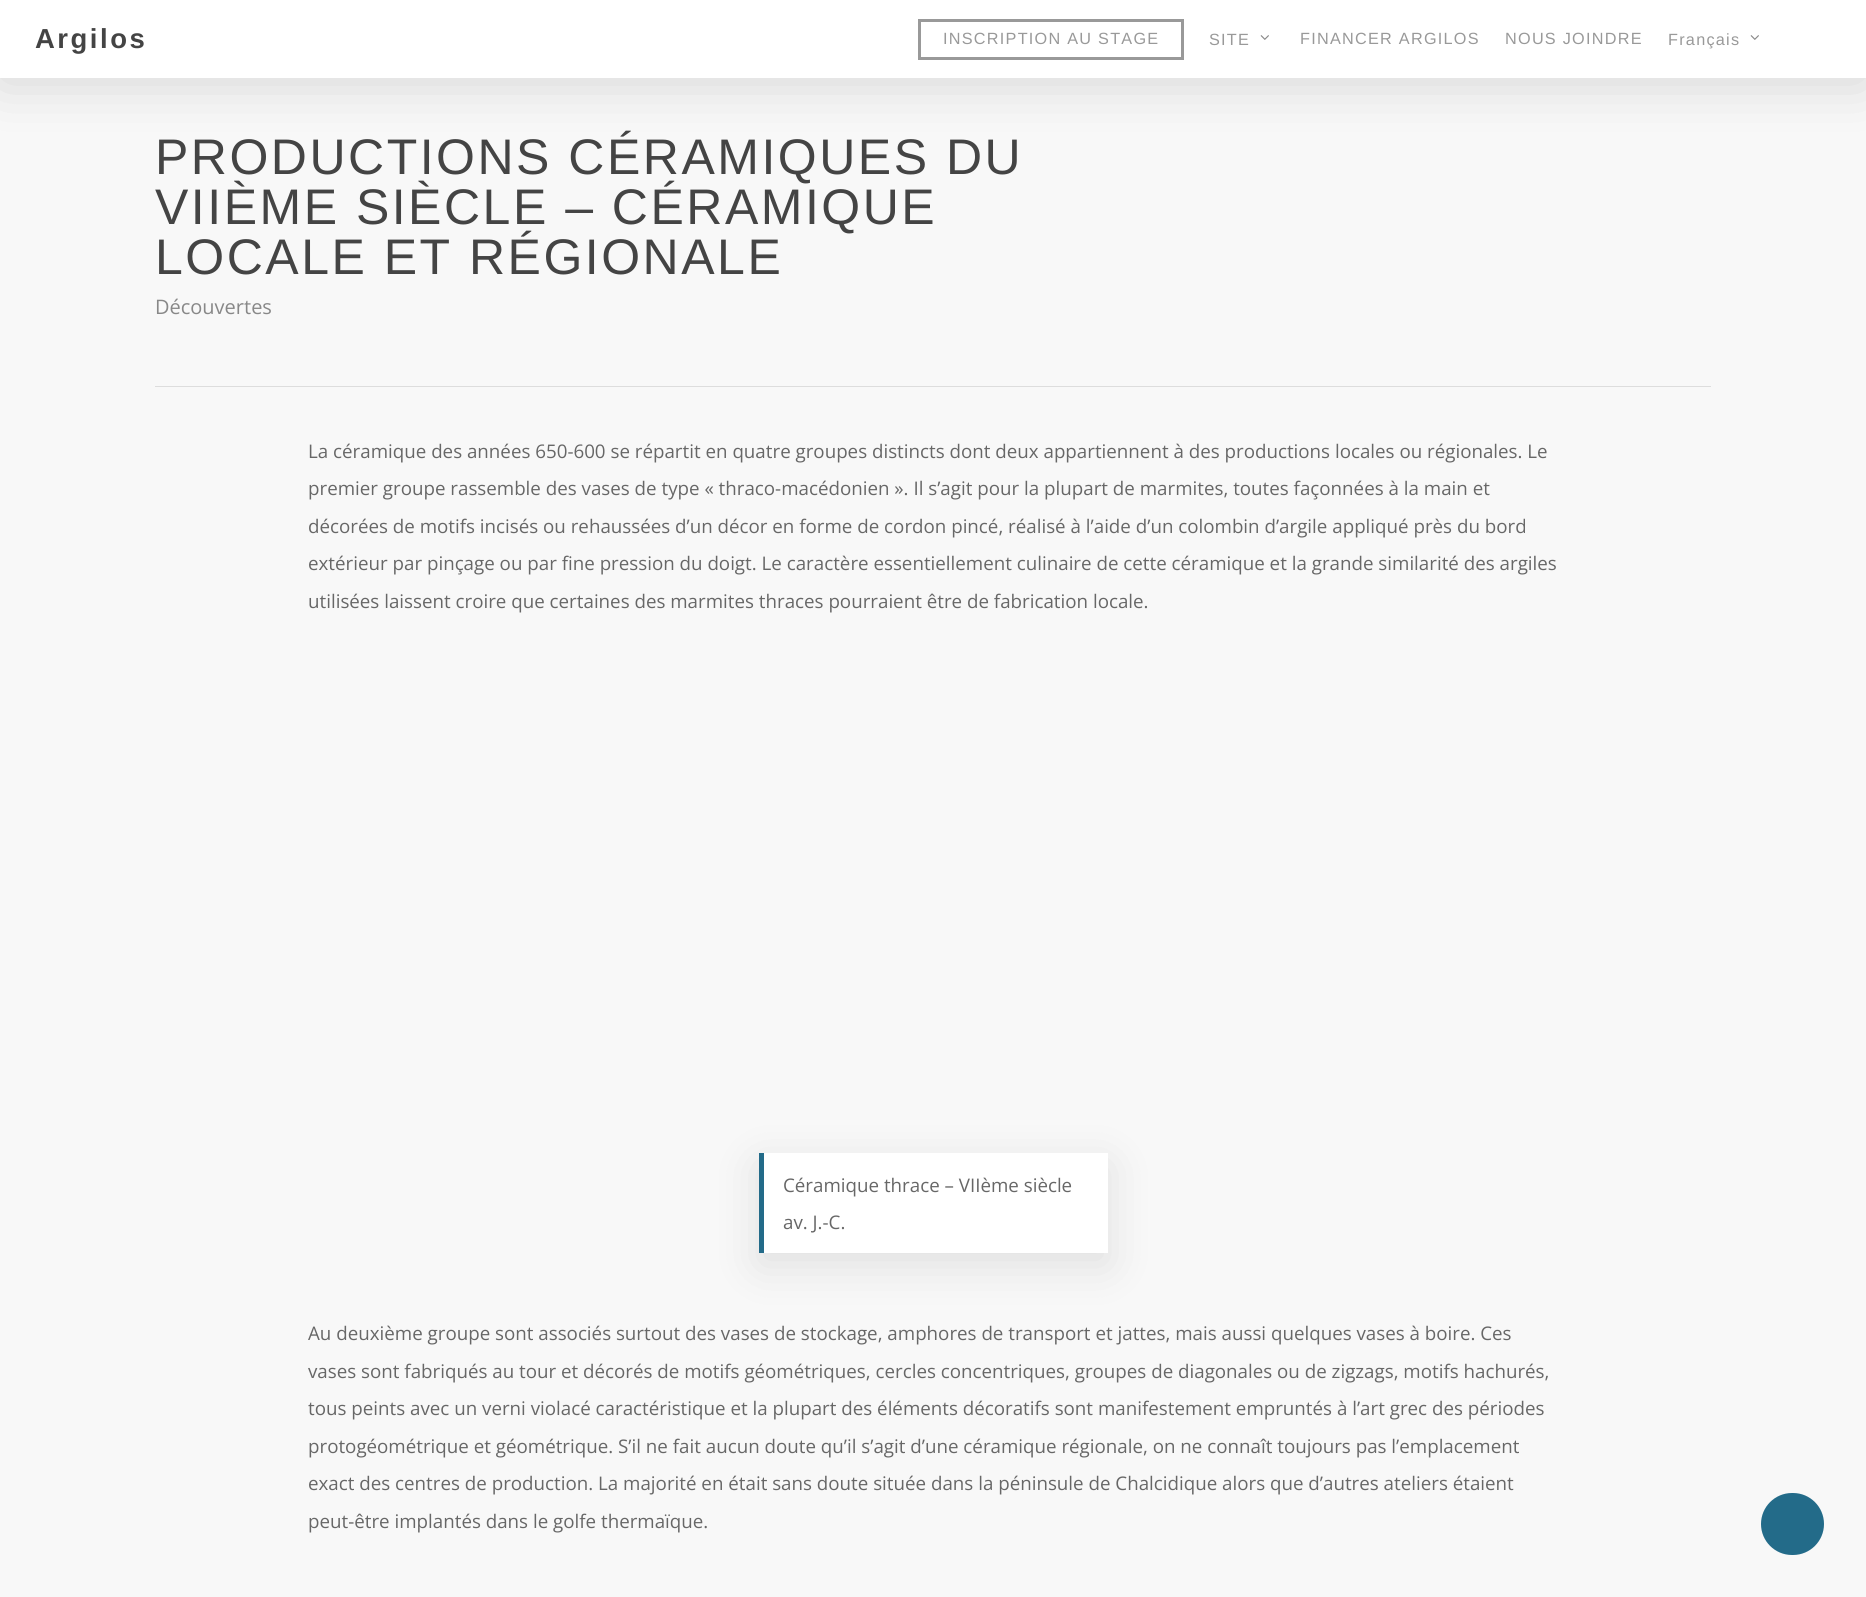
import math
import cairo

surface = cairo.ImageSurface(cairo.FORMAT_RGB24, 1866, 1597)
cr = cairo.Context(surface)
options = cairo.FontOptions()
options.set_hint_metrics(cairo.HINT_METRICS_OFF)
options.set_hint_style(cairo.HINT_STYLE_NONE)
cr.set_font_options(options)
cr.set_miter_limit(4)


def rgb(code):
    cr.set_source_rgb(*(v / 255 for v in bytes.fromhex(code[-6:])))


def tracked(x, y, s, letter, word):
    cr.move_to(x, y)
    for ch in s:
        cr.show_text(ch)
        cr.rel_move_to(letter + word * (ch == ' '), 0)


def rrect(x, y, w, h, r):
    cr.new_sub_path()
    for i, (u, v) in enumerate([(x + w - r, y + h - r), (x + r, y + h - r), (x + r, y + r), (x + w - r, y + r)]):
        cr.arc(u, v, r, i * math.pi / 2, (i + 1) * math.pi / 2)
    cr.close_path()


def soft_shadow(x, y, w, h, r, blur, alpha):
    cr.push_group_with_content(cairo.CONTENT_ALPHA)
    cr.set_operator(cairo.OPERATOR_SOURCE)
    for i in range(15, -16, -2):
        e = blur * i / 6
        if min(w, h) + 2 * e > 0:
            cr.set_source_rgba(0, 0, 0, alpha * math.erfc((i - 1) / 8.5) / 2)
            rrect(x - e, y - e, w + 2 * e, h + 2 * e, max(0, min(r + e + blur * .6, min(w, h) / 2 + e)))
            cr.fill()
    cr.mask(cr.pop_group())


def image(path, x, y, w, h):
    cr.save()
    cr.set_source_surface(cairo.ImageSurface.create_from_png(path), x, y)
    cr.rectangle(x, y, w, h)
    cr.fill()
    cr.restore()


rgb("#ffffff")
cr.paint()
rgb("#f8f8f8")
cr.rectangle(0, 78, 1866, 1519)
cr.fill()
cr.save()
cr.set_fill_rule(cairo.FILL_RULE_EVEN_ODD)
cr.new_path()
cr.move_to(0, 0)
cr.line_to(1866, 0)
cr.line_to(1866, 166)
cr.line_to(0, 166)
cr.close_path()
cr.move_to(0, 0)
cr.line_to(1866, 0)
cr.line_to(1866, 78)
cr.line_to(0, 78)
cr.close_path()
cr.clip()
rgb("#000000")
soft_shadow(0, 4, 1866, 77, 0, 28, 0.15)
cr.restore()
cr.set_source_rgba(1, 1, 1, 0.91)
cr.rectangle(0, 77, 1866, 1)
cr.fill()
cr.rectangle(919.5, 20.5, 263, 38)
rgb("#999999")
cr.set_line_width(3)
cr.stroke()
image("img/1.png", 1260, 35, 9, 5)
image("img/1.png", 1750, 35, 9, 5)
rgb("#dddddd")
cr.rectangle(155, 386, 1556, 1)
cr.fill()
rgb("#000000")
soft_shadow(759, 1165, 349, 100, 0, 22, 0.1)
rgb("#ffffff")
cr.rectangle(764, 1153, 344, 100)
cr.fill()
rgb("#236b89")
cr.rectangle(759, 1153, 5, 100)
cr.fill()
rrect(1761, 1493, 63, 62, 31)
cr.fill()
cr.select_font_face("Liberation Sans", cairo.FONT_SLANT_NORMAL, cairo.FONT_WEIGHT_BOLD)
cr.set_font_size(27.5)
rgb("#444444")
tracked(35, 48, "Argilos", 2.5, 0)
cr.select_font_face("Liberation Sans")
cr.set_font_size(16.25)
rgb("#999999")
for x, y, s in [
    (943, 44, "INSCRIPTION AU STAGE"),
    (1209, 45, "SITE"),
    (1300, 44, "FINANCER ARGILOS"),
    (1505, 44, "NOUS JOINDRE"),
    (1668, 45, "Français"),
]:
    tracked(x, y, s, 1.25, 0)
cr.set_font_size(50)
rgb("#444444")
for x, y, s in [
    (155, 174, "PRODUCTIONS CÉRAMIQUES DU"),
    (155, 224, "VIIÈME SIÈCLE – CÉRAMIQUE"),
    (155, 274, "LOCALE ET RÉGIONALE"),
]:
    tracked(x, y, s, 2.5, 0)
cr.select_font_face("Open Sans")
cr.set_font_size(20)
rgb("#888888")
cr.move_to(155, 314)
cr.show_text("Découvertes")
cr.set_font_size(18.75)
rgb("#676767")
for x, y, s in [
    (308, 458, "La céramique des années 650-600 se répartit en quatre groupes distincts dont deux appartiennent à des productions locales ou régionales. Le"),
    (308, 495, "premier groupe rassemble des vases de type « thraco-macédonien ». Il s’agit pour la plupart de marmites, toutes façonnées à la main et"),
    (308, 533, "décorées de motifs incisés ou rehaussées d’un décor en forme de cordon pincé, réalisé à l’aide d’un colombin d’argile appliqué près du bord"),
    (308, 570, "extérieur par pinçage ou par fine pression du doigt. Le caractère essentiellement culinaire de cette céramique et la grande similarité des argiles"),
    (308, 608, "utilisées laissent croire que certaines des marmites thraces pourraient être de fabrication locale."),
    (783, 1192, "Céramique thrace – VIIème siècle"),
    (783, 1229, "av. J.-C."),
    (308, 1340, "Au deuxième groupe sont associés surtout des vases de stockage, amphores de transport et jattes, mais aussi quelques vases à boire. Ces"),
    (308, 1378, "vases sont fabriqués au tour et décorés de motifs géométriques, cercles concentriques, groupes de diagonales ou de zigzags, motifs hachurés,"),
    (308, 1415, "tous peints avec un verni violacé caractéristique et la plupart des éléments décoratifs sont manifestement empruntés à l’art grec des périodes"),
    (308, 1453, "protogéométrique et géométrique. S’il ne fait aucun doute qu’il s’agit d’une céramique régionale, on ne connaît toujours pas l’emplacement"),
    (308, 1490, "exact des centres de production. La majorité en était sans doute située dans la péninsule de Chalcidique alors que d’autres ateliers étaient"),
    (308, 1528, "peut-être implantés dans le golfe thermaïque."),
]:
    cr.move_to(x, y)
    cr.show_text(s)
surface.write_to_png("page.png")
